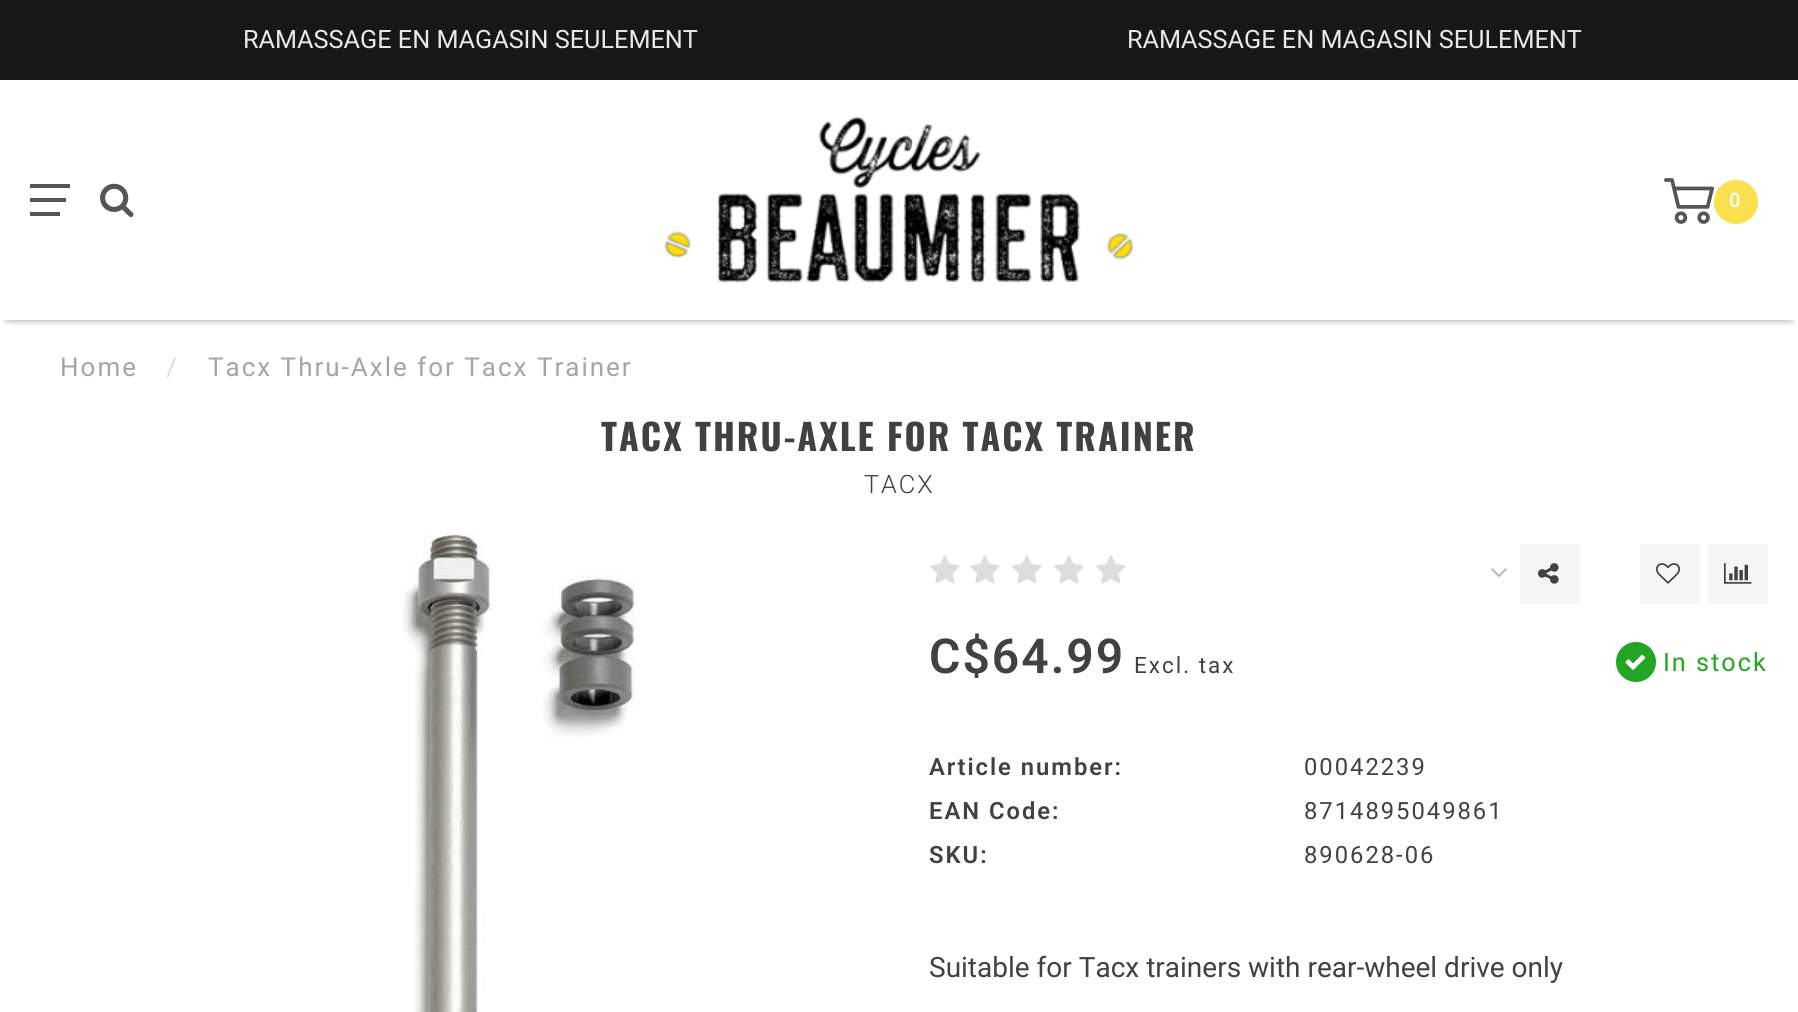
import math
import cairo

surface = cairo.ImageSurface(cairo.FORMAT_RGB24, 1798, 1012)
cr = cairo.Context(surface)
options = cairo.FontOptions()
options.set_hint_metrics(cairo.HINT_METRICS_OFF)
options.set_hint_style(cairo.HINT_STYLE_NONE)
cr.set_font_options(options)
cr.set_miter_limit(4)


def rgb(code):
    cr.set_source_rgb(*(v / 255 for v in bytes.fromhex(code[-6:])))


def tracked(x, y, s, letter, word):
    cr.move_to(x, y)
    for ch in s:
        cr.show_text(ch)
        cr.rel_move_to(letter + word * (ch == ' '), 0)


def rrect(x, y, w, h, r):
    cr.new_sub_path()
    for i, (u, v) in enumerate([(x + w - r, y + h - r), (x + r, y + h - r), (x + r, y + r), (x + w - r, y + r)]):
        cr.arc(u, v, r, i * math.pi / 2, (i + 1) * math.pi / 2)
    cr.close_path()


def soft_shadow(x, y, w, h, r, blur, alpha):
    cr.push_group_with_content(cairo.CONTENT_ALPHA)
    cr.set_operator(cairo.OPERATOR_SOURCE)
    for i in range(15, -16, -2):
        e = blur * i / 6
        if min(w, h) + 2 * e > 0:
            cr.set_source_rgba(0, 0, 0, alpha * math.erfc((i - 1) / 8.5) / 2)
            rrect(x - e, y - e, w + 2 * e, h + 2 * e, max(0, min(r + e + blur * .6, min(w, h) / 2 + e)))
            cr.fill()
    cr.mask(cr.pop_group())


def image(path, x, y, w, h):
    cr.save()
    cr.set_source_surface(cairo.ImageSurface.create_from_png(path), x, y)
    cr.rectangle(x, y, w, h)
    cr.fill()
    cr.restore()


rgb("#ffffff")
cr.paint()
rgb("#171717")
cr.rectangle(0, 0, 1798, 80)
cr.fill()
cr.save()
cr.rectangle(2, 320, 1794, 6)
cr.clip()
rgb("#000000")
soft_shadow(8, 92, 1782, 224, 0, 5, 1)
cr.restore()
for x, y, w, h, color in [
    (30, 184, 40, 4, "#555555"),
    (30, 198, 36, 4, "#555555"),
    (30, 212, 30, 4, "#555555"),
]:
    rgb(color)
    cr.rectangle(x, y, w, h)
    cr.fill()
image("img/1.png", 100, 183, 34, 35)
image("img/2.png", 664, 116, 470, 167)
image("img/3.png", 1664, 178, 50, 46)
rgb("#fadf4f")
cr.arc(1736, 202, 22, 0, 2 * math.pi)
cr.fill()
image("img/4.png", 401, 532, 238, 480)
image("img/5.png", 930, 555, 30, 29)
image("img/5.png", 970, 555, 30, 29)
image("img/5.png", 1012, 555, 30, 29)
image("img/5.png", 1054, 555, 30, 29)
image("img/5.png", 1096, 555, 30, 29)
image("img/6.png", 1491, 568, 16, 10)
rgb("#f5f5f5")
cr.rectangle(1520, 544, 60, 60)
cr.fill()
image("img/7.png", 1538, 563, 21, 21)
cr.rectangle(1640, 544, 60, 60)
cr.fill()
image("img/8.png", 1656, 563, 24, 21)
cr.rectangle(1708, 544, 60, 60)
cr.fill()
image("img/9.png", 1724, 563, 28, 21)
rgb("#22a522")
cr.arc(1636, 662, 20, 0, 2 * math.pi)
cr.fill()
image("img/10.png", 1625, 654, 21, 16)
cr.select_font_face("Roboto")
cr.set_font_size(25.25)
rgb("#e7e9ea")
cr.move_to(243, 48)
cr.show_text("RAMASSAGE EN MAGASIN SEULEMENT")
cr.move_to(1127, 48)
cr.show_text("RAMASSAGE EN MAGASIN SEULEMENT")
cr.select_font_face("Roboto SemiBold")
cr.set_font_size(20)
rgb("#ffffff")
tracked(1729, 207, "0", 2, 0)
cr.select_font_face("Roboto")
cr.set_font_size(26)
rgb("#a5a5a5")
tracked(60, 376, "Home", 2, 0)
rgb("#dddddd")
tracked(166, 376, "/", 2, 0)
rgb("#a5a5a5")
tracked(208, 376, "Tacx Thru-Axle for Tacx Trainer", 2, 0)
cr.select_font_face("Oswald", cairo.FONT_SLANT_NORMAL, cairo.FONT_WEIGHT_BOLD)
cr.set_font_size(36)
rgb("#414141")
tracked(601, 451, "TACX THRU-AXLE FOR TACX TRAINER", 2, 0)
cr.select_font_face("Roboto Light")
cr.set_font_size(25.25)
tracked(864, 493, "TACX", 2, 0)
cr.select_font_face("Roboto SemiBold")
cr.set_font_size(48)
tracked(929, 673, "C$64.99", 2, 0)
cr.select_font_face("Roboto")
cr.set_font_size(22.5)
tracked(1134, 673, "Excl. tax", 2, 0)
cr.set_font_size(25.25)
rgb("#22a522")
tracked(1663, 671, "In stock", 2, 0)
cr.select_font_face("Roboto SemiBold")
cr.set_font_size(23.75)
rgb("#414141")
tracked(929, 775, "Article number:", 2, 0)
cr.select_font_face("Roboto")
tracked(1304, 775, "00042239", 2, 0)
cr.select_font_face("Roboto SemiBold")
tracked(929, 819, "EAN Code:", 2, 0)
cr.select_font_face("Roboto")
tracked(1304, 819, "8714895049861", 2, 0)
cr.select_font_face("Roboto SemiBold")
tracked(929, 863, "SKU:", 2, 0)
cr.select_font_face("Roboto")
tracked(1304, 863, "890628-06", 2, 0)
cr.set_font_size(28)
cr.move_to(929, 977)
cr.show_text("Suitable for Tacx trainers with rear-wheel drive only")
surface.write_to_png("page.png")
